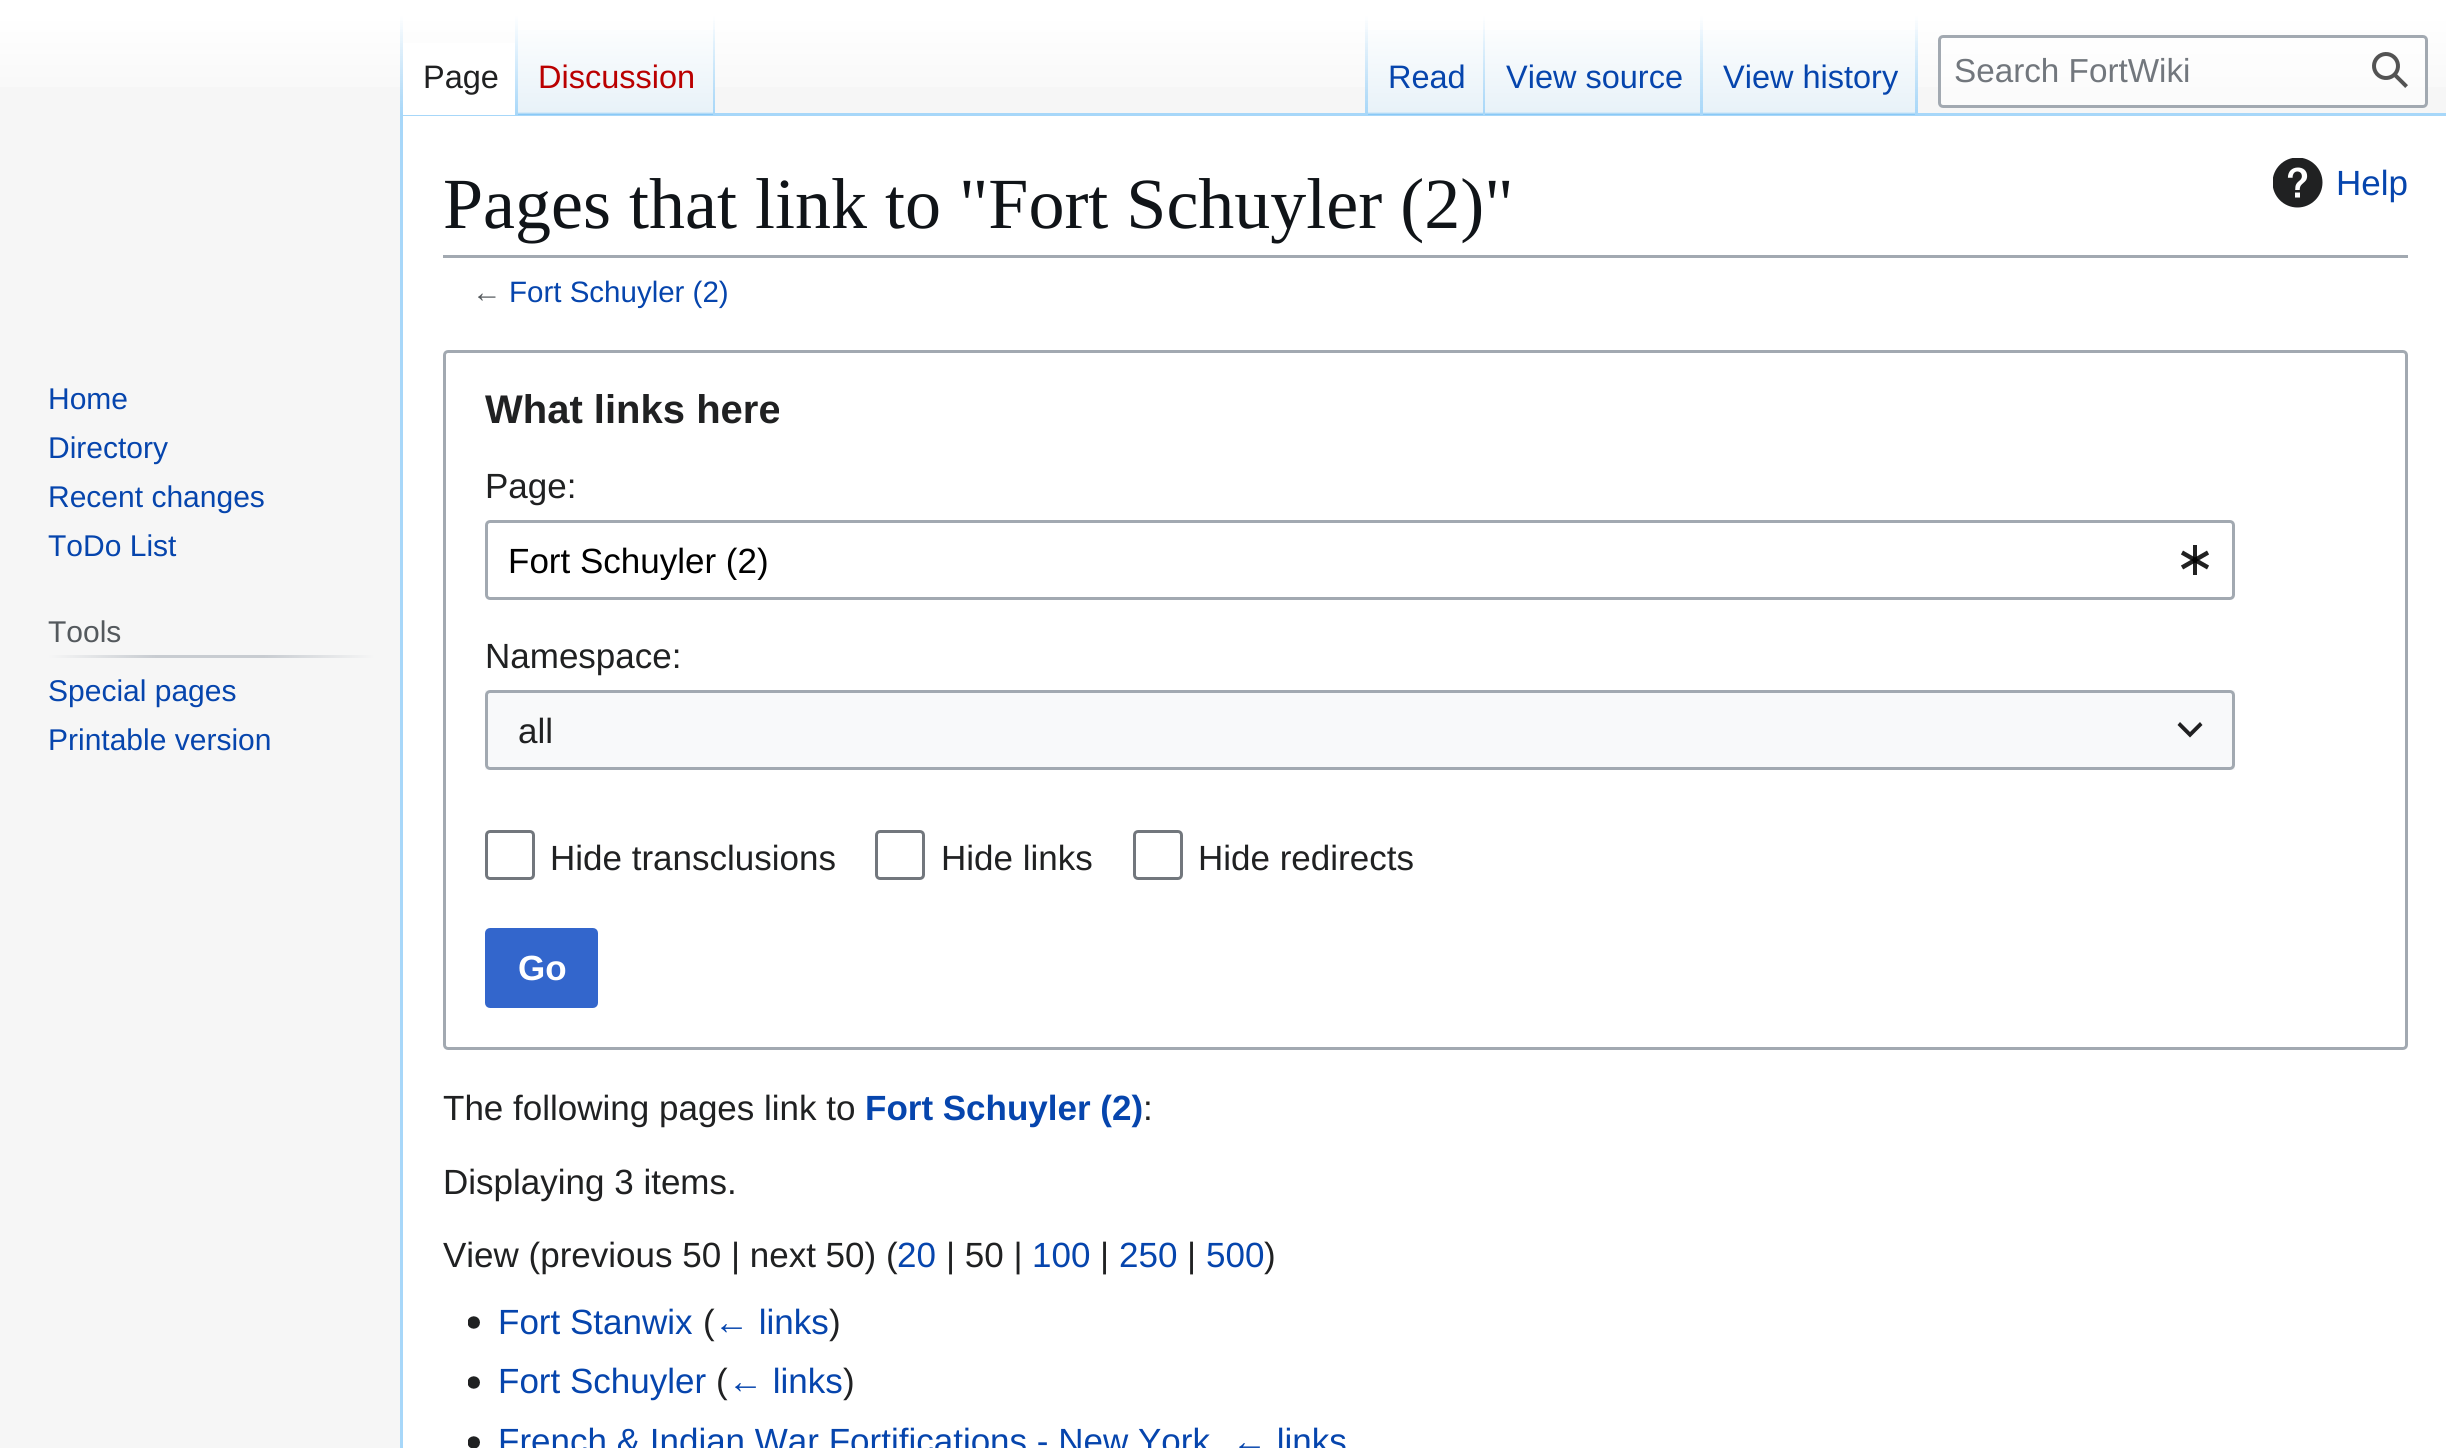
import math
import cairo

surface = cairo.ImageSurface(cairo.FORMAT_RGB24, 2446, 1448)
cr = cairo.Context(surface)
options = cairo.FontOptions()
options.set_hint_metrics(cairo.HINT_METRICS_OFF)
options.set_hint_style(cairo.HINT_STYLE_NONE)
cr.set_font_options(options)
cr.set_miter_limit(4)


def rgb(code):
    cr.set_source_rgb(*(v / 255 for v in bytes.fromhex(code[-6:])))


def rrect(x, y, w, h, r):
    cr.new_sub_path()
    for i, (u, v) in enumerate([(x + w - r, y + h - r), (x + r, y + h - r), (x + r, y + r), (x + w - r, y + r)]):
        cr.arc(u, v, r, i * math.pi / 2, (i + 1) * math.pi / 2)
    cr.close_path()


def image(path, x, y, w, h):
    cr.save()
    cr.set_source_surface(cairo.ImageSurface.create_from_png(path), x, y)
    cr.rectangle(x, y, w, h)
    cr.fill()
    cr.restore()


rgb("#f6f6f6")
cr.paint()
gradient = cairo.LinearGradient(1224, -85, 1224, 115)
gradient.add_color_stop_rgba(0.5, 1, 1, 1, 1)
gradient.add_color_stop_rgba(1, 0.965, 0.965, 0.965, 1)
cr.set_source(gradient)
cr.rectangle(0, 0, 2446, 87)
cr.fill()
rgb("#a7d7f9")
cr.rectangle(400, 113, 2046, 3)
cr.fill()
cr.rectangle(400, 113, 3, 1335)
cr.fill()
gradient = cairo.LinearGradient(401, 15, 401, 115)
gradient.add_color_stop_rgba(0, 0.655, 0.843, 0.976, 0)
gradient.add_color_stop_rgba(1, 0.655, 0.843, 0.976, 1)
cr.set_source(gradient)
cr.rectangle(400, 15, 3, 100)
cr.fill()
rgb("#ffffff")
cr.rectangle(403, 43, 112, 72)
cr.fill()
gradient = cairo.LinearGradient(516, 15, 516, 115)
gradient.add_color_stop_rgba(0, 1, 1, 1, 1)
gradient.add_color_stop_rgba(1, 0.655, 0.843, 0.976, 1)
cr.set_source(gradient)
cr.rectangle(515, 15, 3, 100)
cr.fill()
gradient = cairo.LinearGradient(616, 115, 616, 15)
gradient.add_color_stop_rgba(0, 0.467, 0.757, 0.965, 1)
gradient.add_color_stop_rgba(0.03, 0.91, 0.949, 0.973, 1)
gradient.add_color_stop_rgba(1, 1, 1, 1, 1)
cr.set_source(gradient)
cr.rectangle(518, 30, 197, 85)
cr.fill()
gradient = cairo.LinearGradient(714, 15, 714, 115)
gradient.add_color_stop_rgba(0, 0.655, 0.843, 0.976, 0)
gradient.add_color_stop_rgba(1, 0.655, 0.843, 0.976, 1)
cr.set_source(gradient)
cr.rectangle(713, 15, 2, 100)
cr.fill()
gradient = cairo.LinearGradient(1366, 15, 1366, 115)
gradient.add_color_stop_rgba(0, 0.655, 0.843, 0.976, 0)
gradient.add_color_stop_rgba(1, 0.655, 0.843, 0.976, 1)
cr.set_source(gradient)
cr.rectangle(1365, 15, 3, 100)
cr.fill()
gradient = cairo.LinearGradient(1426, 115, 1426, 15)
gradient.add_color_stop_rgba(0, 0.467, 0.757, 0.965, 1)
gradient.add_color_stop_rgba(0.03, 0.91, 0.949, 0.973, 1)
gradient.add_color_stop_rgba(1, 1, 1, 1, 1)
cr.set_source(gradient)
cr.rectangle(1368, 30, 117, 85)
cr.fill()
gradient = cairo.LinearGradient(1484, 15, 1484, 115)
gradient.add_color_stop_rgba(0, 0.655, 0.843, 0.976, 0)
gradient.add_color_stop_rgba(1, 0.655, 0.843, 0.976, 1)
cr.set_source(gradient)
cr.rectangle(1483, 15, 2, 100)
cr.fill()
gradient = cairo.LinearGradient(1594, 115, 1594, 15)
gradient.add_color_stop_rgba(0, 0.467, 0.757, 0.965, 1)
gradient.add_color_stop_rgba(0.03, 0.91, 0.949, 0.973, 1)
gradient.add_color_stop_rgba(1, 1, 1, 1, 1)
cr.set_source(gradient)
cr.rectangle(1485, 30, 218, 85)
cr.fill()
gradient = cairo.LinearGradient(1701, 15, 1701, 115)
gradient.add_color_stop_rgba(0, 0.655, 0.843, 0.976, 0)
gradient.add_color_stop_rgba(1, 0.655, 0.843, 0.976, 1)
cr.set_source(gradient)
cr.rectangle(1700, 15, 3, 100)
cr.fill()
gradient = cairo.LinearGradient(1810, 115, 1810, 15)
gradient.add_color_stop_rgba(0, 0.467, 0.757, 0.965, 1)
gradient.add_color_stop_rgba(0.03, 0.91, 0.949, 0.973, 1)
gradient.add_color_stop_rgba(1, 1, 1, 1, 1)
cr.set_source(gradient)
cr.rectangle(1703, 30, 215, 85)
cr.fill()
gradient = cairo.LinearGradient(1916, 15, 1916, 115)
gradient.add_color_stop_rgba(0, 0.655, 0.843, 0.976, 0)
gradient.add_color_stop_rgba(1, 0.655, 0.843, 0.976, 1)
cr.set_source(gradient)
cr.rectangle(1915, 15, 3, 100)
cr.fill()
cr.set_source_rgba(1, 1, 1, 0.5)
rrect(1939.5, 36.5, 487, 70, 3.5)
cr.fill_preserve()
rgb("#a2a9b1")
cr.set_line_width(3)
cr.stroke()
image("img/1.png", 2372, 52, 36, 36)
gradient = cairo.LinearGradient(48, 656, 375, 656)
gradient.add_color_stop_rgba(0, 0.965, 0.965, 0.965, 1)
gradient.add_color_stop_rgba(0.33, 0.784, 0.8, 0.82, 1)
gradient.add_color_stop_rgba(0.66, 0.784, 0.8, 0.82, 1)
gradient.add_color_stop_rgba(1, 0.965, 0.965, 0.965, 1)
cr.set_source(gradient)
cr.rectangle(48, 655, 327, 3)
cr.fill()
rgb("#ffffff")
cr.rectangle(403, 116, 2043, 1332)
cr.fill()
rgb("#a2a9b1")
cr.rectangle(443, 255, 1965, 3)
cr.fill()
image("img/2.png", 2273, 158, 50, 50)
rrect(444.5, 351.5, 1962, 697, 3.5)
cr.stroke()
rrect(486.5, 521.5, 1747, 77, 3.5)
cr.stroke()
image("img/3.png", 2181, 545, 28, 30)
rgb("#f8f9fa")
cr.rectangle(485, 690, 1750, 80)
cr.fill()
rrect(486.5, 691.5, 1747, 77, 3.5)
rgb("#a2a9b1")
cr.stroke()
rgb("#202021")
cr.new_path()
cr.move_to(2200, 722)
cr.line_to(2190, 732)
cr.line_to(2180, 722)
cr.line_to(2177.5, 725)
cr.line_to(2190, 737.5)
cr.line_to(2202.5, 725)
cr.close_path()
cr.fill()
rrect(486.5, 831.5, 47, 47, 3.5)
rgb("#72777d")
cr.stroke()
rrect(876.5, 831.5, 47, 47, 3.5)
cr.stroke()
rrect(1134.5, 831.5, 47, 47, 3.5)
cr.stroke()
rgb("#3366cc")
rrect(486.5, 929.5, 110, 77, 3.5)
cr.fill_preserve()
cr.stroke()
image("img/4.png", 468, 1316, 12, 13)
image("img/4.png", 468, 1376, 12, 13)
image("img/5.png", 468, 1436, 12, 12)
cr.select_font_face("Liberation Sans")
cr.set_font_size(32.5)
rgb("#202122")
cr.move_to(423, 88)
cr.show_text("Page")
rgb("#ba0000")
cr.move_to(538, 88)
cr.show_text("Discussion")
rgb("#0645ad")
for x, y, s in [
    (1388, 88, "Read"),
    (1506, 88, "View source"),
    (1723, 88, "View history"),
]:
    cr.move_to(x, y)
    cr.show_text(s)
cr.set_font_size(33.25)
rgb("#72777d")
cr.move_to(1954, 82)
cr.show_text("Search FortWiki")
cr.set_font_size(30)
rgb("#0645ad")
for x, y, s in [
    (48, 409, "Home"),
    (48, 458, "Directory"),
    (48, 507, "Recent changes"),
    (48, 556, "ToDo List"),
]:
    cr.move_to(x, y)
    cr.show_text(s)
rgb("#54595d")
cr.move_to(48, 642)
cr.show_text("Tools")
rgb("#0645ad")
cr.move_to(48, 701)
cr.show_text("Special pages")
cr.move_to(48, 750)
cr.show_text("Printable version")
cr.select_font_face("Liberation Serif")
cr.set_font_size(72)
rgb("#101418")
cr.move_to(443, 228)
cr.show_text("Pages that link to \"Fort Schuyler (2)\"")
cr.select_font_face("Liberation Sans")
cr.set_font_size(35)
rgb("#0645ad")
cr.move_to(2336, 195)
cr.show_text("Help")
cr.set_font_size(29.5)
rgb("#54595d")
cr.move_to(472, 302)
cr.show_text("←")
rgb("#0645ad")
cr.move_to(509, 302)
cr.show_text("Fort Schuyler (2)")
cr.select_font_face("Liberation Sans", cairo.FONT_SLANT_NORMAL, cairo.FONT_WEIGHT_BOLD)
cr.set_font_size(40)
rgb("#202122")
cr.move_to(485, 423)
cr.show_text("What links here")
cr.select_font_face("Liberation Sans")
cr.set_font_size(35)
cr.move_to(485, 498)
cr.show_text("Page:")
cr.save()
cr.rectangle(508, 540, 1655, 40)
cr.clip()
rgb("#000000")
cr.move_to(508, 573)
cr.show_text("Fort Schuyler (2)")
cr.restore()
for x, y, s in [
    (485, 668, "Namespace:"),
    (518, 743, "all"),
    (550, 870, "Hide transclusions"),
    (941, 870, "Hide links"),
    (1198, 870, "Hide redirects"),
]:
    cr.move_to(x, y)
    cr.show_text(s)
cr.select_font_face("Liberation Sans", cairo.FONT_SLANT_NORMAL, cairo.FONT_WEIGHT_BOLD)
rgb("#ffffff")
cr.move_to(518, 980)
cr.show_text("Go")
cr.select_font_face("Liberation Sans")
rgb("#202122")
cr.move_to(443, 1120)
cr.show_text("The following pages link to")
cr.select_font_face("Liberation Sans", cairo.FONT_SLANT_NORMAL, cairo.FONT_WEIGHT_BOLD)
rgb("#0645ad")
cr.move_to(865, 1120)
cr.show_text("Fort Schuyler (2)")
cr.select_font_face("Liberation Sans")
rgb("#202122")
for x, y, s in [
    (1143, 1120, ":"),
    (443, 1194, "Displaying 3 items."),
    (443, 1267, "View (previous 50 | next 50) ("),
]:
    cr.move_to(x, y)
    cr.show_text(s)
rgb("#0645ad")
cr.move_to(897, 1267)
cr.show_text("20")
rgb("#202122")
cr.move_to(946, 1267)
cr.show_text("| 50 |")
rgb("#0645ad")
cr.move_to(1032, 1267)
cr.show_text("100")
rgb("#202122")
cr.move_to(1100, 1267)
cr.show_text("|")
rgb("#0645ad")
cr.move_to(1119, 1267)
cr.show_text("250")
rgb("#202122")
cr.move_to(1187, 1267)
cr.show_text("|")
rgb("#0645ad")
cr.move_to(1206, 1267)
cr.show_text("500")
rgb("#202122")
cr.move_to(1264, 1267)
cr.show_text(")")
rgb("#0645ad")
cr.move_to(498, 1334)
cr.show_text("Fort Stanwix")
rgb("#202122")
cr.move_to(703, 1334)
cr.show_text("(")
rgb("#0645ad")
cr.move_to(714, 1334)
cr.show_text("← links")
rgb("#202122")
cr.move_to(829, 1334)
cr.show_text(")")
rgb("#0645ad")
cr.move_to(498, 1393)
cr.show_text("Fort Schuyler")
rgb("#202122")
cr.move_to(716, 1393)
cr.show_text("(")
rgb("#0645ad")
cr.move_to(728, 1393)
cr.show_text("← links")
rgb("#202122")
cr.move_to(843, 1393)
cr.show_text(")")
rgb("#0645ad")
cr.move_to(498, 1453)
cr.show_text("French & Indian War Fortifications - New York")
cr.move_to(1232, 1453)
cr.show_text("← links")
surface.write_to_png("page.png")
